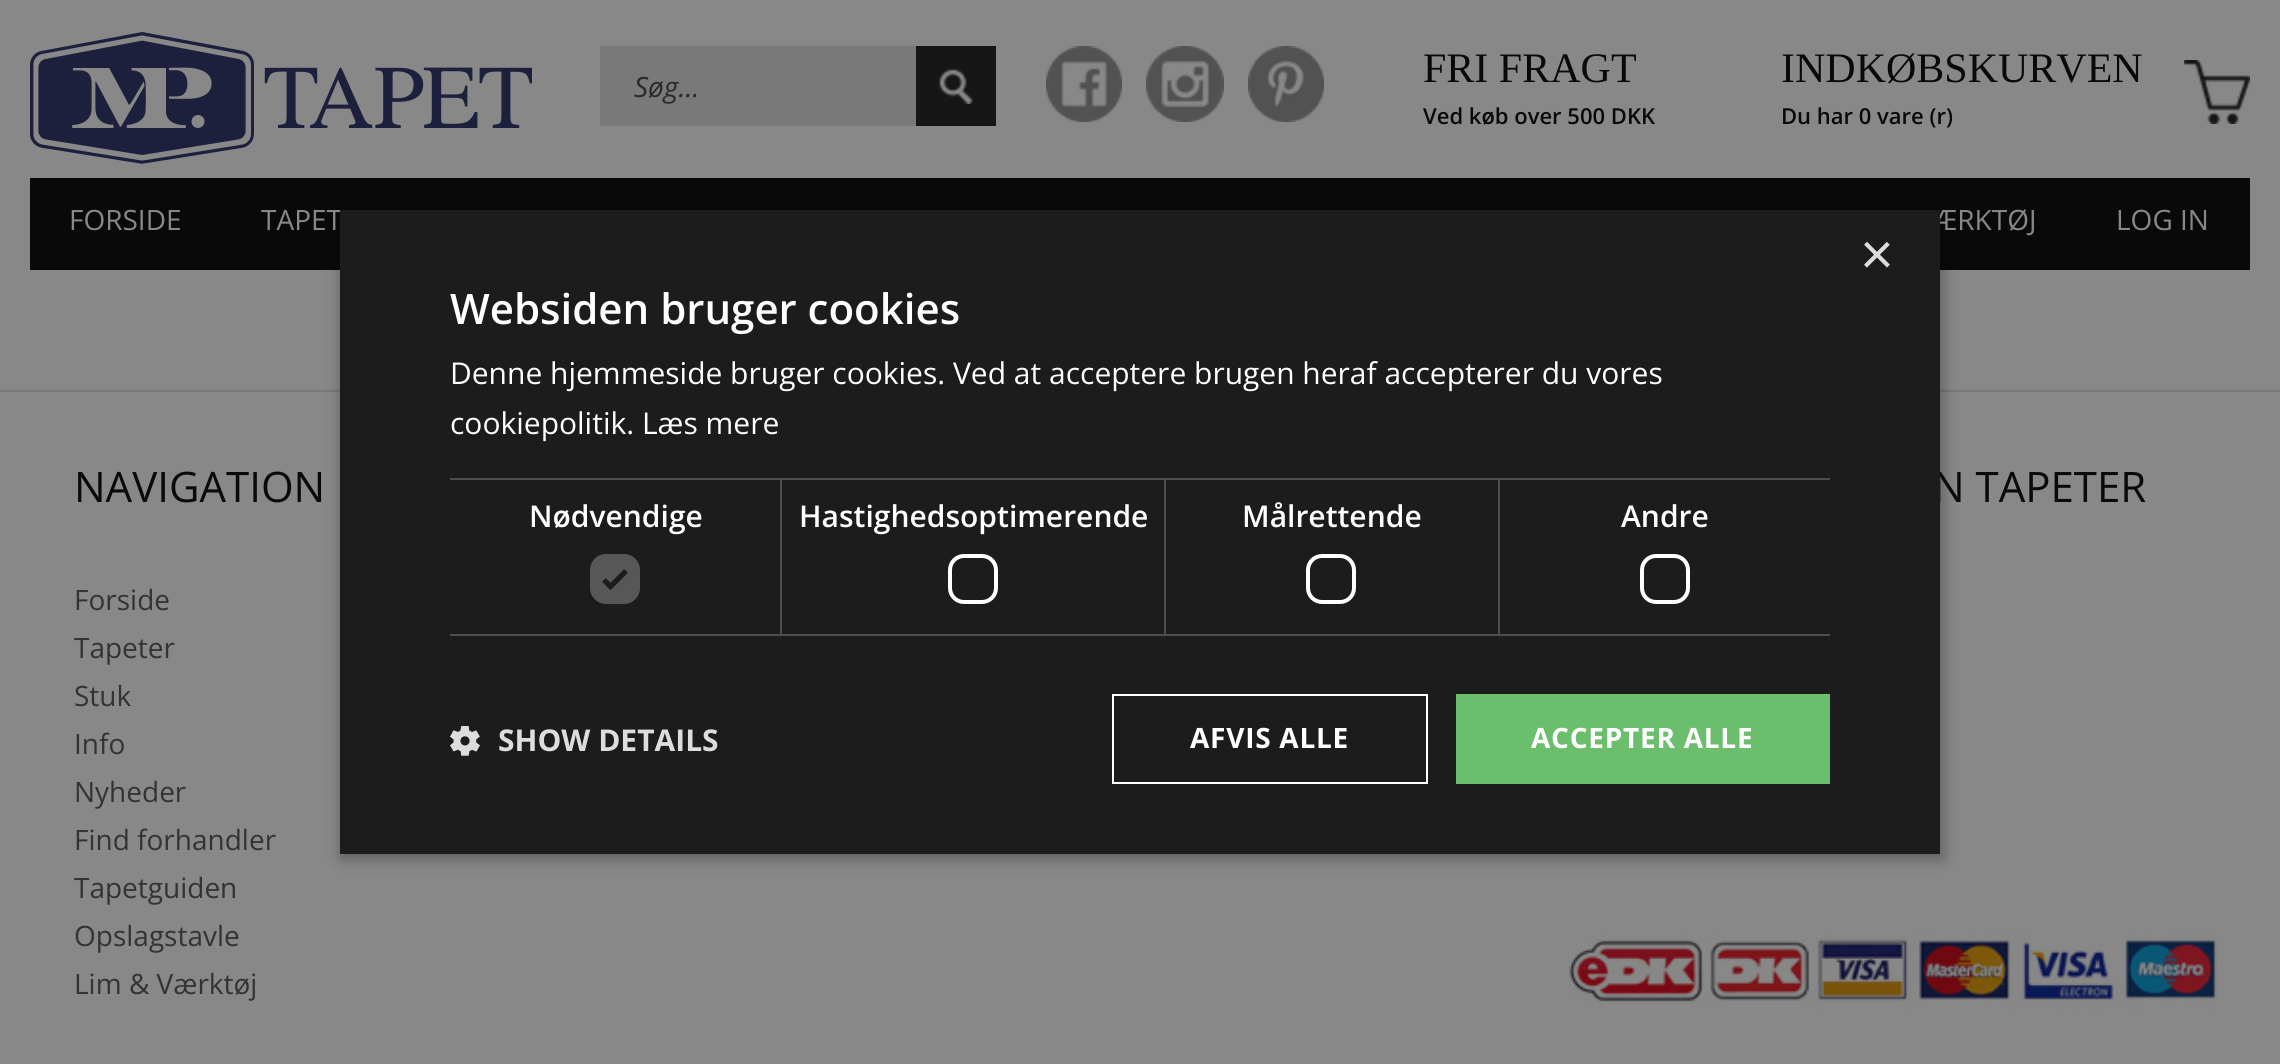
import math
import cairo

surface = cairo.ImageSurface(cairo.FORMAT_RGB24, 2280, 1064)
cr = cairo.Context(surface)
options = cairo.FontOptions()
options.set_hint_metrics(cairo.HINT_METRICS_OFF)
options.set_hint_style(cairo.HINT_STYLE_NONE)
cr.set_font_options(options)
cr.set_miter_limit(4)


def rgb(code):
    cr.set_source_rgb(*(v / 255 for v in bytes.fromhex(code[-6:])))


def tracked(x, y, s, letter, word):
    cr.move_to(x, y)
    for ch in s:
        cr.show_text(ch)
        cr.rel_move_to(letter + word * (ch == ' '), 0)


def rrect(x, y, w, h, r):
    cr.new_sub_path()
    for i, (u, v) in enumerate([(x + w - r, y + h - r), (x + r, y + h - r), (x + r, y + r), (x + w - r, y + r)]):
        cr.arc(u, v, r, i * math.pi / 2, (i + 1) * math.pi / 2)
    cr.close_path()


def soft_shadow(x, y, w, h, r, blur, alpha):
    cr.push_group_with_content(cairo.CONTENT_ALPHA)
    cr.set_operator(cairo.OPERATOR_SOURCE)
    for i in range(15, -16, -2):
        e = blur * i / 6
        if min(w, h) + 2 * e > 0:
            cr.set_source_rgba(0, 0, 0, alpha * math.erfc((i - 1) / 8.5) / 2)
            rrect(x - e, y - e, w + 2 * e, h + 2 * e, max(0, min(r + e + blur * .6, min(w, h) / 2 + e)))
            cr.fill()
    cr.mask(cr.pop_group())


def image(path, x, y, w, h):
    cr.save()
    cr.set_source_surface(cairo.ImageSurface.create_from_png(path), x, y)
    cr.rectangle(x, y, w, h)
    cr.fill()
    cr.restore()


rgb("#888888")
cr.paint()
image("img/1.png", 30, 32, 502, 132)
rgb("#797979")
cr.rectangle(600, 46, 316, 80)
cr.fill()
rgb("#161616")
cr.rectangle(916, 46, 80, 80)
cr.fill()
image("img/2.png", 939, 69, 34, 35)
image("img/3.png", 1046, 46, 76, 76)
image("img/4.png", 1146, 46, 78, 76)
image("img/5.png", 1248, 46, 76, 76)
image("img/6.png", 2184, 60, 66, 64)
rgb("#090909")
cr.rectangle(30, 178, 2220, 92)
cr.fill()
rgb("#797979")
cr.rectangle(0, 390, 2280, 2)
cr.fill()
rgb("#000000")
soft_shadow(342, 214, 1600, 644, 0, 8, 0.35)
image("img/8.png", 1569, 933, 648, 77)
cr.select_font_face("Open Sans", cairo.FONT_SLANT_ITALIC)
cr.set_font_size(28)
rgb("#292929")
cr.move_to(634, 97)
cr.show_text("Søg...")
cr.select_font_face("Liberation Serif")
cr.set_font_size(42)
rgb("#090909")
cr.move_to(1423, 82)
cr.show_text("FRI FRAGT")
cr.select_font_face("Open Sans SemiBold")
cr.set_font_size(22)
cr.move_to(1423, 124)
cr.show_text("Ved køb over 500 DKK")
cr.select_font_face("Liberation Serif")
cr.set_font_size(42)
cr.move_to(1781, 82)
cr.show_text("INDKØBSKURVEN")
cr.select_font_face("Open Sans SemiBold")
cr.set_font_size(22)
cr.move_to(1781, 124)
cr.show_text("Du har 0 vare (r)")
cr.select_font_face("Open Sans")
cr.set_font_size(28)
rgb("#888888")
for x, y, s in [
    (69, 230, "FORSIDE"),
    (261, 230, "TAPET"),
    (1933, 230, "ÆRKTØJ"),
    (2116, 230, "LOG IN"),
]:
    cr.move_to(x, y)
    cr.show_text(s)
cr.set_font_size(42)
rgb("#090909")
cr.move_to(74, 502)
cr.show_text("NAVIGATION")
cr.set_font_size(28)
rgb("#333333")
for x, y, s in [
    (74, 610, "Forside"),
    (74, 658, "Tapeter"),
    (74, 706, "Stuk"),
    (74, 754, "Info"),
    (74, 802, "Nyheder"),
    (74, 850, "Find forhandler"),
    (74, 898, "Tapetguiden"),
    (74, 946, "Opslagstavle"),
    (74, 994, "Lim & Værktøj"),
]:
    cr.move_to(x, y)
    cr.show_text(s)
cr.set_font_size(42)
rgb("#090909")
cr.move_to(1933, 502)
cr.show_text("N TAPETER")
rgb("#1c1c1c")
cr.rectangle(340, 210, 1600, 644)
cr.fill()
cr.select_font_face("Liberation Sans")
cr.set_font_size(58)
rgb("#dddddd")
cr.move_to(1860, 274)
cr.show_text("×")
cr.select_font_face("Open Sans SemiBold")
cr.set_font_size(42)
rgb("#ffffff")
cr.move_to(450, 324)
cr.show_text("Websiden bruger cookies")
image("img/7.png", 450, 726, 30, 30)
cr.select_font_face("Open Sans", cairo.FONT_SLANT_NORMAL, cairo.FONT_WEIGHT_BOLD)
cr.set_font_size(30)
rgb("#dddddd")
cr.move_to(498, 751)
cr.show_text("SHOW DETAILS")
rrect(1642, 556, 46, 46, 14)
rgb("#ffffff")
cr.set_line_width(4)
cr.stroke()
rrect(1308, 556, 46, 46, 14)
cr.stroke()
rrect(950, 556, 46, 46, 14)
cr.stroke()
rgb("#575757")
rrect(590, 554, 50, 50, 16)
cr.fill()
cr.new_path()
cr.move_to(604, 580)
cr.line_to(610.5, 586.5)
cr.line_to(626, 571)
rgb("#1c1c1c")
cr.set_line_width(5.2)
cr.stroke()
cr.rectangle(1113, 695, 314, 88)
rgb("#ffffff")
cr.set_line_width(2)
cr.stroke()
cr.set_font_size(28)
tracked(1190, 748, "AFVIS ALLE", 0.75, 0)
rgb("#6bbe6b")
cr.rectangle(1456, 694, 374, 90)
cr.fill()
rgb("#ffffff")
tracked(1531, 748, "ACCEPTER ALLE", 0.75, 0)
cr.select_font_face("Open Sans SemiBold")
cr.set_font_size(30)
cr.move_to(1621, 527)
cr.show_text("Andre")
cr.move_to(1242, 527)
cr.show_text("Målrettende")
for x, y, w, h, color in [
    (450, 478, 1380, 2, "#4d4d4d"),
    (1498, 478, 2, 158, "#4d4d4d"),
    (1166, 634, 664, 2, "#4d4d4d"),
]:
    rgb(color)
    cr.rectangle(x, y, w, h)
    cr.fill()
rgb("#ffffff")
cr.move_to(799, 527)
cr.show_text("Hastighedsoptimerende")
rgb("#4d4d4d")
cr.rectangle(1164, 478, 2, 158)
cr.fill()
cr.rectangle(782, 634, 384, 2)
cr.fill()
rgb("#ffffff")
cr.move_to(529, 527)
cr.show_text("Nødvendige")
rgb("#4d4d4d")
cr.rectangle(780, 478, 2, 158)
cr.fill()
cr.rectangle(450, 634, 332, 2)
cr.fill()
cr.select_font_face("Open Sans")
rgb("#ffffff")
cr.move_to(450, 434)
cr.show_text("cookiepolitik. Læs mere")
cr.move_to(450, 384)
cr.show_text("Denne hjemmeside bruger cookies. Ved at acceptere brugen heraf accepterer du vores")
surface.write_to_png("page.png")
